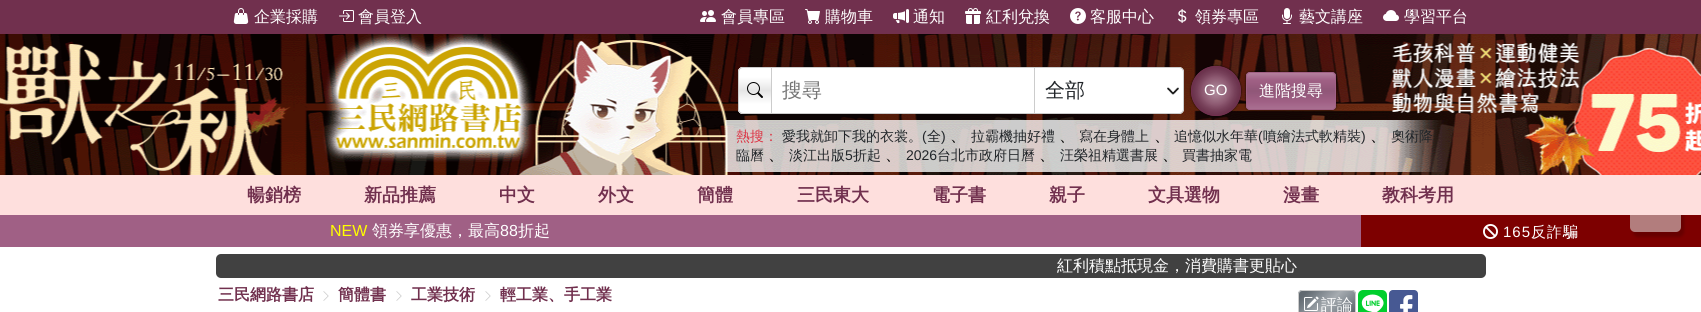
import math
import cairo

surface = cairo.ImageSurface(cairo.FORMAT_RGB24, 1701, 312)
cr = cairo.Context(surface)
options = cairo.FontOptions()
options.set_hint_metrics(cairo.HINT_METRICS_OFF)
options.set_hint_style(cairo.HINT_STYLE_NONE)
cr.set_font_options(options)
cr.set_miter_limit(4)


def rgb(code):
    cr.set_source_rgb(*(v / 255 for v in bytes.fromhex(code[-6:])))


def tracked(x, y, s, letter, word):
    cr.move_to(x, y)
    for ch in s:
        cr.show_text(ch)
        cr.rel_move_to(letter + word * (ch == ' '), 0)


def rrect(x, y, w, h, r):
    cr.new_sub_path()
    for i, (u, v) in enumerate([(x + w - r, y + h - r), (x + r, y + h - r), (x + r, y + r), (x + w - r, y + r)]):
        cr.arc(u, v, r, i * math.pi / 2, (i + 1) * math.pi / 2)
    cr.close_path()


def soft_shadow(x, y, w, h, r, blur, alpha):
    cr.push_group_with_content(cairo.CONTENT_ALPHA)
    cr.set_operator(cairo.OPERATOR_SOURCE)
    for i in range(15, -16, -2):
        e = blur * i / 6
        if min(w, h) + 2 * e > 0:
            cr.set_source_rgba(0, 0, 0, alpha * math.erfc((i - 1) / 8.5) / 2)
            rrect(x - e, y - e, w + 2 * e, h + 2 * e, max(0, min(r + e + blur * .6, min(w, h) / 2 + e)))
            cr.fill()
    cr.mask(cr.pop_group())


def image(path, x, y, w, h):
    cr.save()
    cr.set_source_surface(cairo.ImageSurface.create_from_png(path), x, y)
    cr.rectangle(x, y, w, h)
    cr.fill()
    cr.restore()


rgb("#ffffff")
cr.paint()
rgb("#71304e")
cr.rectangle(0, 0, 1701, 34)
cr.fill()
image("img/1.png", 233, 8, 16, 16)
image("img/2.png", 339, 10, 15, 12)
image("img/3.png", 700, 10, 16, 12)
image("img/4.png", 805, 9, 15, 15)
image("img/5.png", 893, 9, 16, 15)
image("img/6.png", 965, 8, 16, 16)
image("img/7.png", 1070, 8, 16, 16)
image("img/8.png", 1178, 9, 9, 14)
image("img/9.png", 1282, 8, 10, 16)
image("img/10.png", 1383, 10, 16, 11)
image("img/11.png", 0, 34, 1701, 141)
rgb("#ffffff")
rrect(738, 67, 446, 47, 5)
cr.fill()
cr.new_path()
cr.move_to(743, 67)
cr.line_to(772, 67)
cr.line_to(772, 114)
cr.line_to(743, 114)
cr.curve_to(740, 114, 738, 112, 738, 109)
cr.line_to(738, 72)
cr.curve_to(738, 69, 740, 67, 743, 67)
cr.close_path()
cr.fill()
cr.save()
cr.new_path()
cr.move_to(743, 67)
cr.line_to(772, 67)
cr.line_to(772, 114)
cr.line_to(743, 114)
cr.curve_to(740, 114, 738, 112, 738, 109)
cr.line_to(738, 72)
cr.curve_to(738, 69, 740, 67, 743, 67)
cr.close_path()
cr.clip()
gradient = cairo.LinearGradient(755, 68, 755, 113)
gradient.add_color_stop_rgba(0, 1, 1, 1, 0.2)
gradient.add_color_stop_rgba(0.2, 1, 1, 1, 0)
gradient.add_color_stop_rgba(0.2, 0, 0, 0, 0)
gradient.add_color_stop_rgba(0.5, 0, 0, 0, 0.1)
gradient.add_color_stop_rgba(0.8, 0, 0, 0, 0)
gradient.add_color_stop_rgba(0.8, 1, 1, 1, 0)
gradient.add_color_stop_rgba(1, 1, 1, 1, 0.2)
cr.set_source(gradient)
cr.rectangle(738, 68, 33, 45)
cr.fill()
cr.restore()
cr.new_path()
cr.move_to(743, 67.5)
cr.line_to(771.5, 67.5)
cr.line_to(771.5, 113.5)
cr.line_to(743, 113.5)
cr.curve_to(740.5, 113.5, 738.5, 111.5, 738.5, 109)
cr.line_to(738.5, 72)
cr.curve_to(738.5, 69.5, 740.5, 67.5, 743, 67.5)
cr.close_path()
rgb("#cccccc")
cr.set_line_width(1)
cr.stroke()
image("img/12.png", 747, 82, 16, 16)
image("img/13.png", 1167, 87, 12, 8)
cr.new_path()
cr.move_to(1034.5, 67.5)
cr.line_to(1179, 67.5)
cr.curve_to(1181.5, 67.5, 1183.5, 69.5, 1183.5, 72)
cr.line_to(1183.5, 109)
cr.curve_to(1183.5, 111.5, 1181.5, 113.5, 1179, 113.5)
cr.line_to(1034.5, 113.5)
cr.close_path()
cr.stroke()
cr.rectangle(771.5, 67.5, 263, 46)
cr.stroke()
rgb("#000000")
soft_shadow(1191, 66, 50, 50, 25, 1, 0.9)
rgb("#71304e")
cr.arc(1216, 91, 25, 0, 2 * math.pi)
cr.fill()
cr.save()
rrect(1191, 66, 50, 50, 25)
cr.clip()
gradient = cairo.RadialGradient(1216, 91, 0, 1216, 91, 34)
gradient.add_color_stop_rgba(0.1, 1, 1, 1, 0.4)
gradient.add_color_stop_rgba(0.4, 1, 1, 1, 0.2)
gradient.add_color_stop_rgba(0.8, 0, 0, 0, 0.1)
gradient.add_color_stop_rgba(1, 0, 0, 0, 0.2)
cr.set_source(gradient)
cr.rectangle(1192, 67, 48, 48)
cr.fill()
cr.restore()
cr.arc(1216, 91, 24.5, 0, 2 * math.pi)
cr.stroke()
rgb("#000000")
soft_shadow(1246, 72, 90, 38, 4, 1, 0.9)
rgb("#a06085")
rrect(1246, 72, 90, 38, 4)
cr.fill()
cr.save()
rrect(1246, 72, 90, 38, 4)
cr.clip()
gradient = cairo.LinearGradient(1291, 73, 1291, 109)
gradient.add_color_stop_rgba(0, 1, 1, 1, 0.2)
gradient.add_color_stop_rgba(0.2, 1, 1, 1, 0)
gradient.add_color_stop_rgba(0.2, 0, 0, 0, 0)
gradient.add_color_stop_rgba(0.5, 0, 0, 0, 0.1)
gradient.add_color_stop_rgba(0.8, 0, 0, 0, 0)
gradient.add_color_stop_rgba(0.8, 1, 1, 1, 0)
gradient.add_color_stop_rgba(1, 1, 1, 1, 0.1)
cr.set_source(gradient)
cr.rectangle(1246, 73, 90, 36)
cr.fill()
cr.restore()
rrect(1246.5, 72.5, 89, 37, 3.5)
cr.stroke()
rgb("#7d0000")
cr.rectangle(1361, 215, 340, 32)
cr.fill()
cr.save()
cr.set_fill_rule(cairo.FILL_RULE_EVEN_ODD)
cr.new_path()
cr.move_to(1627, 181)
cr.line_to(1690, 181)
cr.line_to(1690, 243)
cr.line_to(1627, 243)
cr.close_path()
cr.move_to(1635, 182)
cr.line_to(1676, 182)
cr.curve_to(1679, 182, 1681, 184, 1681, 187)
cr.line_to(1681, 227)
cr.curve_to(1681, 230, 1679, 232, 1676, 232)
cr.line_to(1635, 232)
cr.curve_to(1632, 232, 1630, 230, 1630, 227)
cr.line_to(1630, 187)
cr.curve_to(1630, 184, 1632, 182, 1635, 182)
cr.close_path()
cr.clip()
rgb("#000000")
soft_shadow(1633, 187, 51, 50, 5, 1.5, 0.18)
cr.restore()
cr.set_source_rgba(0.835, 0.82, 0.82, 0.6)
rrect(1630, 182, 51, 50, 5)
cr.fill()
rgb("#fedfdd")
cr.rectangle(0, 175, 1701, 40)
cr.fill()
rgb("#a06085")
cr.rectangle(0, 215, 1361, 32)
cr.fill()
image("img/14.png", 1483, 224, 15, 15)
rgb("#414141")
rrect(216, 254, 1270, 24, 5)
cr.fill()
image("img/15.png", 323, 291, 6, 10)
image("img/15.png", 396, 291, 6, 10)
image("img/15.png", 485, 291, 6, 10)
rgb("#6c757d")
rrect(1298, 290, 58, 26, 4)
cr.fill()
gradient = cairo.LinearGradient(1306, 284, 1348, 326)
gradient.add_color_stop_rgba(0.1, 0, 0, 0, 0.1)
gradient.add_color_stop_rgba(0.25, 1, 1, 1, 0.1)
gradient.add_color_stop_rgba(0.5, 1, 1, 1, 0.4)
gradient.add_color_stop_rgba(0.75, 1, 1, 1, 0.1)
gradient.add_color_stop_rgba(0.9, 0, 0, 0, 0.1)
cr.set_source(gradient)
cr.rectangle(1299, 291, 56, 21)
cr.fill()
rrect(1298.5, 290.5, 57, 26, 3.5)
rgb("#cccccc")
cr.stroke()
image("img/16.png", 1304, 296, 15, 15)
image("img/17.png", 1358, 290, 29, 22)
image("img/18.png", 1389, 290, 29, 22)
cr.select_font_face("WenQuanYi Zen Hei Medium")
cr.set_font_size(16)
rgb("#ffffff")
for x, y, s in [
    (254, 22, "企業採購"),
    (358, 22, "會員登入"),
    (721, 22, "會員專區"),
    (825, 22, "購物車"),
    (913, 22, "通知"),
    (986, 22, "紅利兌換"),
    (1090, 22, "客服中心"),
    (1195, 22, "領券專區"),
    (1299, 22, "藝文講座"),
    (1404, 22, "學習平台"),
]:
    cr.move_to(x, y)
    cr.show_text(s)
cr.set_font_size(20)
rgb("#757575")
cr.move_to(782, 97)
cr.show_text("搜尋")
rgb("#212529")
cr.move_to(1045, 97)
cr.show_text("全部")
cr.select_font_face("Liberation Sans")
cr.set_font_size(15)
rgb("#ffffff")
cr.move_to(1204, 95)
cr.show_text("GO")
cr.select_font_face("WenQuanYi Zen Hei Medium")
cr.set_font_size(16)
cr.move_to(1259, 96)
cr.show_text("進階搜尋")
cr.set_font_size(14)
rgb("#dc3545")
cr.move_to(736, 141)
cr.show_text("熱搜：")
rgb("#212529")
cr.move_to(782, 141)
cr.show_text("愛我就卸下我的衣裳。")
cr.select_font_face("Liberation Sans")
cr.move_to(922, 141)
cr.show_text("(")
cr.select_font_face("WenQuanYi Zen Hei Medium")
cr.move_to(927, 141)
cr.show_text("全")
cr.select_font_face("Liberation Sans")
cr.move_to(941, 141)
cr.show_text(")")
cr.select_font_face("WenQuanYi Zen Hei Medium")
cr.set_font_size(16)
rgb("#000000")
cr.move_to(950, 141)
cr.show_text("、")
cr.set_font_size(14)
rgb("#212529")
cr.move_to(971, 141)
cr.show_text("拉霸機抽好禮")
cr.set_font_size(16)
rgb("#000000")
cr.move_to(1059, 141)
cr.show_text("、")
cr.set_font_size(14)
rgb("#212529")
cr.move_to(1079, 141)
cr.show_text("寫在身體上")
cr.set_font_size(16)
rgb("#000000")
cr.move_to(1154, 141)
cr.show_text("、")
cr.set_font_size(14)
rgb("#212529")
cr.move_to(1174, 141)
cr.show_text("追憶似水年華")
cr.select_font_face("Liberation Sans")
cr.move_to(1258, 141)
cr.show_text("(")
cr.select_font_face("WenQuanYi Zen Hei Medium")
cr.move_to(1263, 141)
cr.show_text("噴繪法式軟精裝")
cr.select_font_face("Liberation Sans")
cr.move_to(1361, 141)
cr.show_text(")")
cr.select_font_face("WenQuanYi Zen Hei Medium")
cr.set_font_size(16)
rgb("#000000")
cr.move_to(1370, 141)
cr.show_text("、")
cr.set_font_size(14)
rgb("#212529")
cr.move_to(1391, 141)
cr.show_text("奧術降")
cr.move_to(736, 160)
cr.show_text("臨曆")
cr.set_font_size(16)
rgb("#000000")
cr.move_to(768, 160)
cr.show_text("、")
cr.set_font_size(14)
rgb("#212529")
cr.move_to(789, 160)
cr.show_text("淡江出版")
cr.select_font_face("Liberation Sans")
cr.move_to(845, 160)
cr.show_text("5")
cr.select_font_face("WenQuanYi Zen Hei Medium")
cr.move_to(853, 160)
cr.show_text("折起")
cr.set_font_size(16)
rgb("#000000")
cr.move_to(885, 160)
cr.show_text("、")
cr.select_font_face("Liberation Sans")
cr.set_font_size(14)
rgb("#212529")
cr.move_to(906, 160)
cr.show_text("2026")
cr.select_font_face("WenQuanYi Zen Hei Medium")
cr.move_to(937, 160)
cr.show_text("台北市政府日曆")
cr.set_font_size(16)
rgb("#000000")
cr.move_to(1039, 160)
cr.show_text("、")
cr.set_font_size(14)
rgb("#212529")
cr.move_to(1060, 160)
cr.show_text("汪榮祖精選書展")
cr.set_font_size(16)
rgb("#000000")
cr.move_to(1162, 160)
cr.show_text("、")
cr.set_font_size(14)
rgb("#212529")
cr.move_to(1182, 160)
cr.show_text("買書抽家電")
cr.select_font_face("WenQuanYi Zen Hei", cairo.FONT_SLANT_NORMAL, cairo.FONT_WEIGHT_BOLD)
cr.set_font_size(18)
rgb("#71304e")
for x, y, s in [
    (247, 201, "暢銷榜"),
    (364, 201, "新品推薦"),
    (499, 201, "中文"),
    (598, 201, "外文"),
    (697, 201, "簡體"),
    (797, 201, "三民東大"),
    (932, 201, "電子書"),
    (1049, 201, "親子"),
    (1148, 201, "文具選物"),
    (1283, 201, "漫畫"),
    (1382, 201, "教科考用"),
]:
    cr.move_to(x, y)
    cr.show_text(s)
cr.select_font_face("Liberation Sans")
cr.set_font_size(16)
rgb("#ffff00")
cr.move_to(330, 236)
cr.show_text("NEW")
cr.select_font_face("WenQuanYi Zen Hei Medium")
rgb("#ffffff")
cr.move_to(372, 236)
cr.show_text("領券享優惠，最高")
cr.select_font_face("Liberation Sans")
cr.move_to(500, 236)
cr.show_text("88")
cr.select_font_face("WenQuanYi Zen Hei Medium")
cr.move_to(518, 236)
cr.show_text("折起")
cr.select_font_face("Liberation Sans")
cr.set_font_size(15)
tracked(1503, 237, "165", 1, 0)
cr.select_font_face("WenQuanYi Zen Hei Medium")
tracked(1531, 237, "反詐騙", 1, 0)
cr.set_font_size(16)
cr.move_to(1057, 271)
cr.show_text("紅利積點抵現金，消費購書更貼心")
cr.select_font_face("WenQuanYi Zen Hei", cairo.FONT_SLANT_NORMAL, cairo.FONT_WEIGHT_BOLD)
rgb("#71304e")
for x, y, s in [
    (218, 300, "三民網路書店"),
    (338, 300, "簡體書"),
    (411, 300, "工業技術"),
    (500, 300, "輕工業、手工業"),
]:
    cr.move_to(x, y)
    cr.show_text(s)
cr.select_font_face("WenQuanYi Zen Hei Medium")
rgb("#ffffff")
cr.move_to(1321, 310)
cr.show_text("評論")
surface.write_to_png("page.png")
